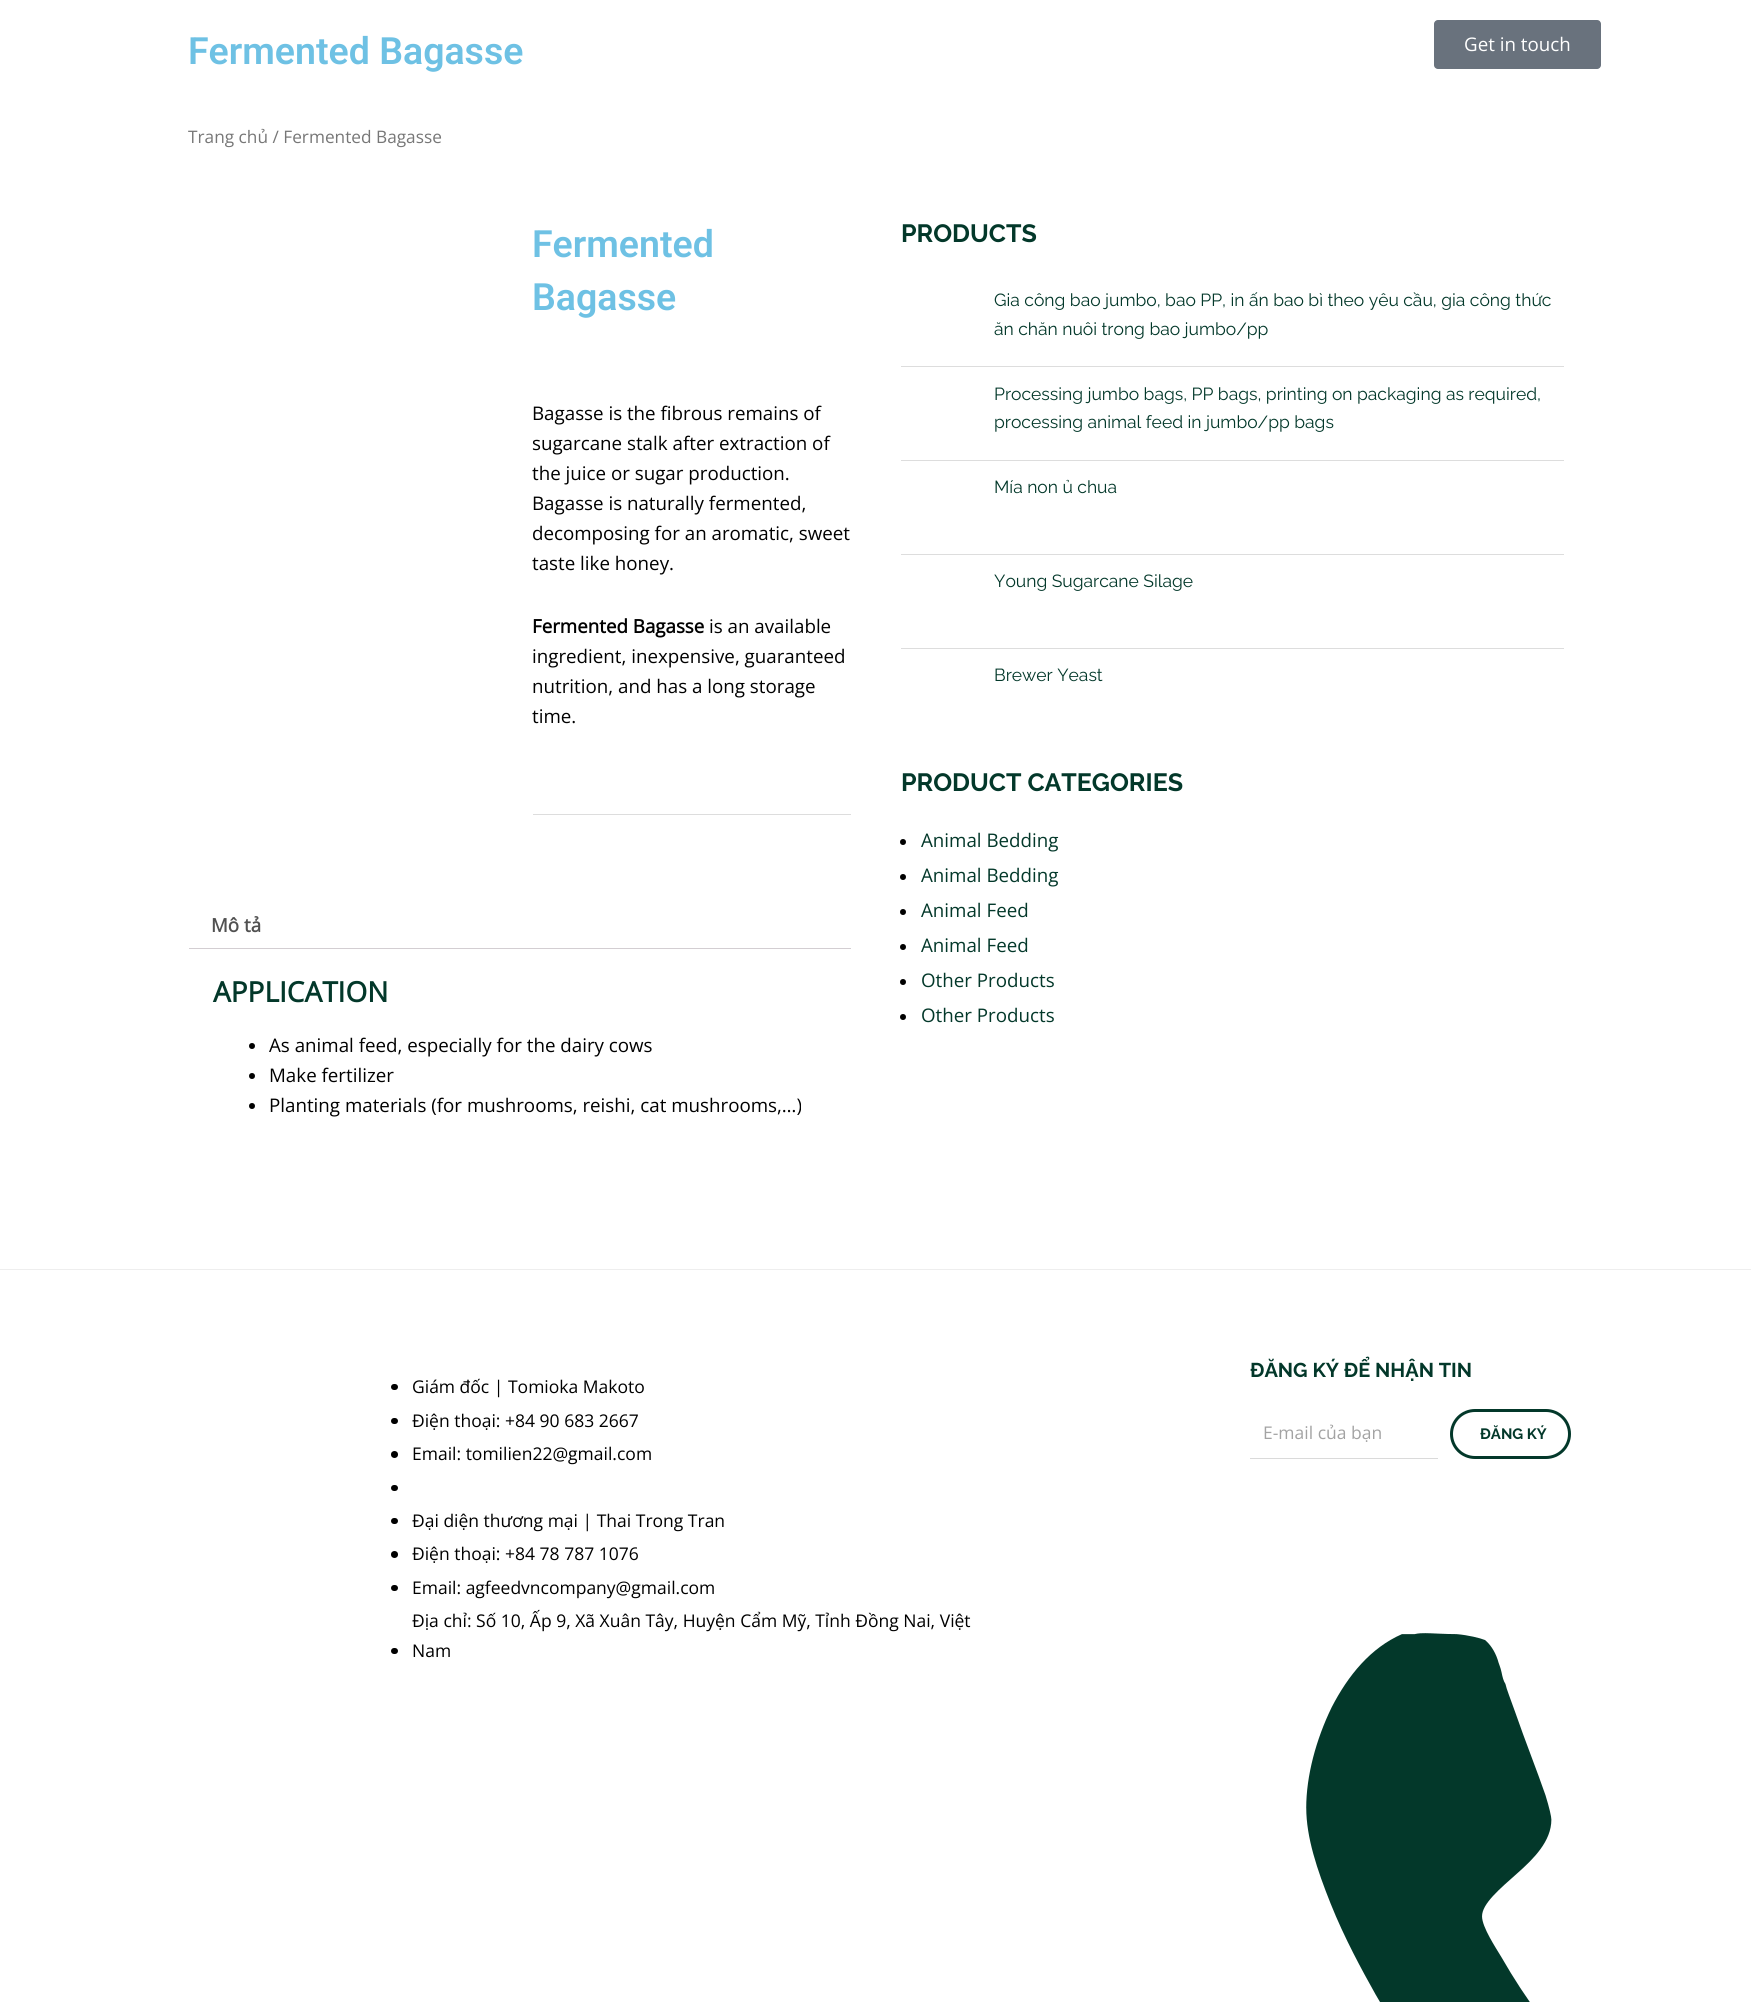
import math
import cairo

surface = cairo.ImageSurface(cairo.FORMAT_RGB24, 1751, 2002)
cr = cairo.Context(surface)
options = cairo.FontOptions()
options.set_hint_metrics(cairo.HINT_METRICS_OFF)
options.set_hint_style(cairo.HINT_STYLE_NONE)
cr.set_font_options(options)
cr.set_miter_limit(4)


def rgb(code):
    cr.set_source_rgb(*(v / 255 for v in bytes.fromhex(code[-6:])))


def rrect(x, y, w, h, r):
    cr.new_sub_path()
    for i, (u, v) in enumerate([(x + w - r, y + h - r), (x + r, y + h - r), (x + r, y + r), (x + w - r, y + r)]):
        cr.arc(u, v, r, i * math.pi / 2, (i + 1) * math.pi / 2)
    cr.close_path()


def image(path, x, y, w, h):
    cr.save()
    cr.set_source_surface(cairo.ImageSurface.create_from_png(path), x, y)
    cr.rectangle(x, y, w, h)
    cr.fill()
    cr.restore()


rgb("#ffffff")
cr.paint()
rgb("#dddddd")
cr.rectangle(533, 814, 318, 1)
cr.fill()
rgb("#d3ced2")
cr.rectangle(189, 948, 662, 1)
cr.fill()
rgb("#000000")
cr.arc(252, 1046, 3, 0, 2 * math.pi)
cr.fill()
cr.arc(252, 1076, 3, 0, 2 * math.pi)
cr.fill()
cr.arc(252, 1106, 3, 0, 2 * math.pi)
cr.fill()
for x, y, w, h, color in [
    (901, 366, 663, 1, "#dddddd"),
    (901, 460, 663, 1, "#dddddd"),
    (901, 554, 663, 1, "#dddddd"),
    (901, 648, 663, 1, "#dddddd"),
]:
    rgb(color)
    cr.rectangle(x, y, w, h)
    cr.fill()
rgb("#000000")
cr.arc(903, 842, 3, 0, 2 * math.pi)
cr.fill()
cr.arc(903, 877, 3, 0, 2 * math.pi)
cr.fill()
cr.arc(903, 912, 3, 0, 2 * math.pi)
cr.fill()
cr.arc(903, 947, 3, 0, 2 * math.pi)
cr.fill()
cr.arc(903, 982, 3, 0, 2 * math.pi)
cr.fill()
cr.arc(903, 1017, 3, 0, 2 * math.pi)
cr.fill()
rgb("#69727d")
rrect(1434, 20, 167, 49, 4)
cr.fill()
rgb("#eeeeee")
cr.rectangle(0, 1269, 1751, 1)
cr.fill()
rgb("#000000")
rrect(391, 1384, 7, 6, 3)
cr.fill()
rrect(391, 1418, 7, 6, 3)
cr.fill()
cr.arc(394.5, 1454.5, 3.5, 0, 2 * math.pi)
cr.fill()
rrect(391, 1485, 7, 6, 3)
cr.fill()
rrect(391, 1518, 7, 6, 3)
cr.fill()
cr.arc(394.5, 1554.5, 3.5, 0, 2 * math.pi)
cr.fill()
rrect(391, 1585, 7, 6, 3)
cr.fill()
rrect(391, 1648, 7, 6, 3)
cr.fill()
rgb("#dadada")
cr.rectangle(1250, 1458, 188, 1)
cr.fill()
rrect(1451.5, 1410.5, 118, 47, 23.5)
rgb("#03382a")
cr.set_line_width(3)
cr.stroke()
image("img/1.png", 1306, 1633, 246, 369)
cr.select_font_face("Roboto SemiBold")
cr.set_font_size(37.5)
rgb("#6ec1e4")
cr.move_to(188, 64)
cr.show_text("Fermented Bagasse")
cr.select_font_face("Open Sans")
cr.set_font_size(17.25)
rgb("#777777")
cr.move_to(188, 143)
cr.show_text("Trang chủ / Fermented Bagasse")
cr.select_font_face("Roboto SemiBold")
cr.set_font_size(37.5)
rgb("#6ec1e4")
cr.move_to(532, 257)
cr.show_text("Fermented")
cr.move_to(532, 310)
cr.show_text("Bagasse")
cr.select_font_face("Open Sans")
cr.set_font_size(18.75)
rgb("#000000")
for x, y, s in [
    (532, 420, "Bagasse is the fibrous remains of"),
    (532, 450, "sugarcane stalk after extraction of"),
    (532, 480, "the juice or sugar production."),
    (532, 510, "Bagasse is naturally fermented,"),
    (532, 540, "decomposing for an aromatic, sweet"),
    (532, 570, "taste like honey."),
]:
    cr.move_to(x, y)
    cr.show_text(s)
cr.select_font_face("Open Sans", cairo.FONT_SLANT_NORMAL, cairo.FONT_WEIGHT_BOLD)
cr.move_to(532, 633)
cr.show_text("Fermented Bagasse")
cr.select_font_face("Open Sans")
for x, y, s in [
    (709, 633, "is an available"),
    (532, 663, "ingredient, inexpensive, guaranteed"),
    (532, 693, "nutrition, and has a long storage"),
    (532, 723, "time."),
]:
    cr.move_to(x, y)
    cr.show_text(s)
cr.select_font_face("Open Sans", cairo.FONT_SLANT_NORMAL, cairo.FONT_WEIGHT_BOLD)
rgb("#515151")
cr.move_to(211, 932)
cr.show_text("Mô tả")
cr.set_font_size(28)
rgb("#03382a")
cr.move_to(213, 1002)
cr.show_text("APPLICATION")
cr.select_font_face("Open Sans")
cr.set_font_size(18.75)
rgb("#000000")
for x, y, s in [
    (269, 1052, "As animal feed, especially for the dairy cows"),
    (269, 1082, "Make fertilizer"),
    (269, 1112, "Planting materials (for mushrooms, reishi, cat mushrooms,…)"),
]:
    cr.move_to(x, y)
    cr.show_text(s)
cr.select_font_face("Raleway", cairo.FONT_SLANT_NORMAL, cairo.FONT_WEIGHT_BOLD)
cr.set_font_size(25)
rgb("#03382a")
cr.move_to(901, 242)
cr.show_text("PRODUCTS")
cr.select_font_face("Raleway")
cr.set_font_size(17.5)
for x, y, s in [
    (994, 306, "Gia công bao jumbo, bao PP, in ấn bao bì theo yêu cầu, gia công thức"),
    (994, 335, "ăn chăn nuôi trong bao jumbo/pp"),
    (994, 400, "Processing jumbo bags, PP bags, printing on packaging as required,"),
    (994, 428, "processing animal feed in jumbo/pp bags"),
    (994, 493, "Mía non ủ chua"),
    (994, 587, "Young Sugarcane Silage"),
    (994, 681, "Brewer Yeast"),
]:
    cr.move_to(x, y)
    cr.show_text(s)
cr.select_font_face("Raleway", cairo.FONT_SLANT_NORMAL, cairo.FONT_WEIGHT_BOLD)
cr.set_font_size(25)
cr.move_to(901, 791)
cr.show_text("PRODUCT CATEGORIES")
cr.select_font_face("Open Sans")
cr.set_font_size(18.75)
for x, y, s in [
    (921, 847, "Animal Bedding"),
    (921, 882, "Animal Bedding"),
    (921, 917, "Animal Feed"),
    (921, 952, "Animal Feed"),
    (921, 987, "Other Products"),
    (921, 1022, "Other Products"),
]:
    cr.move_to(x, y)
    cr.show_text(s)
rgb("#ffffff")
cr.move_to(1464, 51)
cr.show_text("Get in touch")
cr.set_font_size(17.5)
rgb("#000000")
for x, y, s in [
    (412, 1393, "Giám đốc | Tomioka Makoto"),
    (412, 1427, "Điện thoại: +84 90 683 2667"),
    (412, 1460, "Email: tomilien22@gmail.com"),
    (412, 1527, "Đại diện thương mại | Thai Trong Tran"),
    (412, 1560, "Điện thoại: +84 78 787 1076"),
    (412, 1594, "Email: agfeedvncompany@gmail.com"),
    (412, 1627, "Địa chỉ: Số 10, Ấp 9, Xã Xuân Tây, Huyện Cẩm Mỹ, Tỉnh Đồng Nai, Việt"),
    (412, 1657, "Nam"),
]:
    cr.move_to(x, y)
    cr.show_text(s)
cr.select_font_face("Raleway", cairo.FONT_SLANT_NORMAL, cairo.FONT_WEIGHT_BOLD)
cr.set_font_size(20)
rgb("#03382a")
cr.move_to(1250, 1377)
cr.show_text("ĐĂNG KÝ ĐỂ NHẬN TIN")
cr.select_font_face("Open Sans")
cr.set_font_size(17.5)
rgb("#a3a3a3")
cr.move_to(1263, 1439)
cr.show_text("E-mail của bạn")
cr.select_font_face("Raleway", cairo.FONT_SLANT_NORMAL, cairo.FONT_WEIGHT_BOLD)
cr.set_font_size(15)
rgb("#03382a")
cr.move_to(1480, 1439)
cr.show_text("ĐĂNG KÝ")
surface.write_to_png("page.png")
